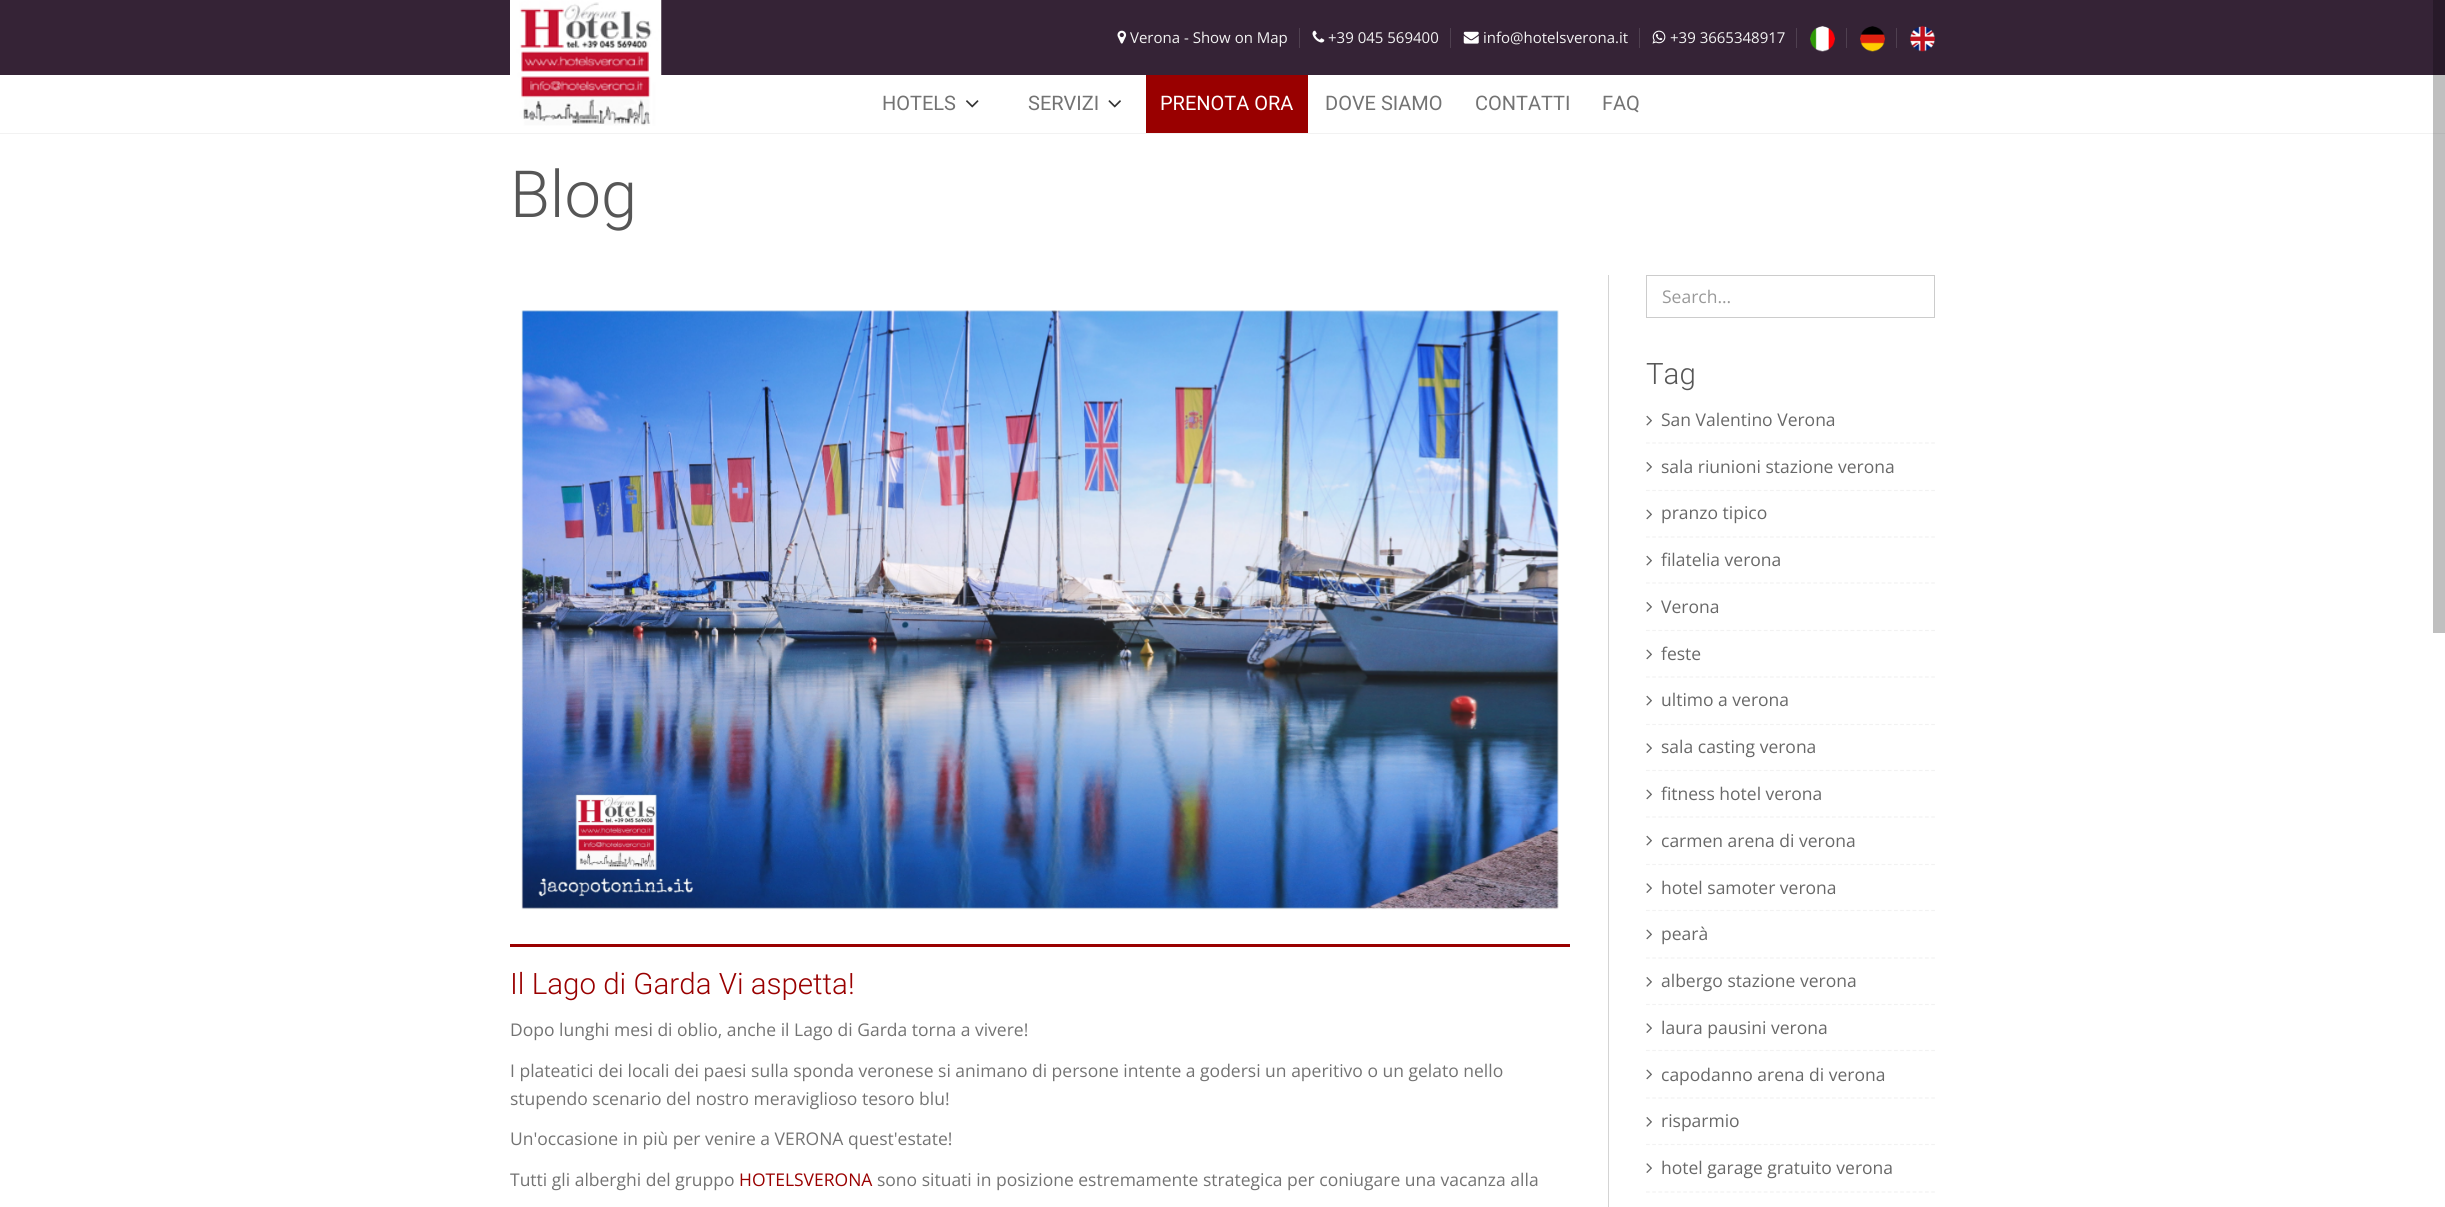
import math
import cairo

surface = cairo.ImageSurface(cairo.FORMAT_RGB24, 2445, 1207)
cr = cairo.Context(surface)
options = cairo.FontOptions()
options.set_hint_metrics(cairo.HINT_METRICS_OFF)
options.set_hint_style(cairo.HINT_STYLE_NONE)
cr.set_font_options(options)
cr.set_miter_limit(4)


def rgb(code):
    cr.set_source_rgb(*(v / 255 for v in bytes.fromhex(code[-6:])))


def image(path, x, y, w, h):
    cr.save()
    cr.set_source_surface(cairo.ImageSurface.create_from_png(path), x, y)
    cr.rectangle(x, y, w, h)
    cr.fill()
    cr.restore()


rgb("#ffffff")
cr.paint()
for x, y, w, h, color in [
    (2433, 75, 12, 558, "#bfbfbf"),
    (0, 133, 2433, 1, "#f2f2f2"),
    (2433, 133, 12, 1, "#b6b6b6"),
    (0, 0, 2433, 75, "#352336"),
    (2433, 0, 12, 75, "#281a29"),
]:
    rgb(color)
    cr.rectangle(x, y, w, h)
    cr.fill()
image("img/1.png", 510, 0, 152, 126)
image("img/2.png", 1117, 30, 10, 14)
rgb("#4f4050")
cr.rectangle(1299, 28, 1, 20)
cr.fill()
image("img/3.png", 1312, 30, 13, 13)
cr.rectangle(1450, 28, 1, 20)
cr.fill()
image("img/4.png", 1463, 31, 16, 13)
cr.rectangle(1639, 28, 1, 20)
cr.fill()
image("img/5.png", 1652, 30, 14, 14)
cr.rectangle(1796, 28, 1, 20)
cr.fill()
image("img/6.png", 1810, 26, 25, 26)
cr.rectangle(1846, 28, 1, 20)
cr.fill()
image("img/7.png", 1860, 26, 25, 26)
cr.rectangle(1896, 28, 1, 20)
cr.fill()
image("img/8.png", 1910, 26, 25, 26)
image("img/9.png", 966, 100, 13, 8)
image("img/10.png", 1108, 100, 13, 8)
rgb("#990000")
cr.rectangle(1146, 75, 162, 58)
cr.fill()
cr.rectangle(510, 944, 1060, 3)
cr.fill()
image("img/11.png", 521, 310, 1038, 600)
rgb("#d4d4d4")
cr.rectangle(1608, 275, 1, 932)
cr.fill()
cr.rectangle(1646.5, 275.5, 288, 42)
rgb("#cccccc")
cr.set_line_width(1)
cr.stroke()
cr.new_path()
cr.move_to(1646, 443)
cr.line_to(1935, 443)
rgb("#f2f2f2")
cr.set_line_width(1.2)
cr.set_dash([3.75, 2.45])
cr.stroke()
image("img/12.png", 1646, 415, 6, 11)
cr.new_path()
cr.move_to(1646, 490.5)
cr.line_to(1935, 490.5)
cr.stroke()
image("img/13.png", 1646, 462, 6, 10)
cr.new_path()
cr.move_to(1646, 537)
cr.line_to(1935, 537)
cr.stroke()
image("img/14.png", 1646, 509, 6, 11)
cr.new_path()
cr.move_to(1646, 583)
cr.line_to(1935, 583)
cr.stroke()
image("img/12.png", 1646, 555, 6, 11)
cr.new_path()
cr.move_to(1646, 630.5)
cr.line_to(1935, 630.5)
cr.stroke()
image("img/13.png", 1646, 602, 6, 10)
cr.new_path()
cr.move_to(1646, 677)
cr.line_to(1935, 677)
cr.stroke()
image("img/14.png", 1646, 649, 6, 11)
cr.new_path()
cr.move_to(1646, 724.5)
cr.line_to(1935, 724.5)
cr.stroke()
image("img/12.png", 1646, 695, 6, 11)
cr.new_path()
cr.move_to(1646, 770.5)
cr.line_to(1935, 770.5)
cr.stroke()
image("img/15.png", 1646, 743, 6, 10)
cr.new_path()
cr.move_to(1646, 817)
cr.line_to(1935, 817)
cr.stroke()
image("img/14.png", 1646, 789, 6, 11)
cr.new_path()
cr.move_to(1646, 864.5)
cr.line_to(1935, 864.5)
cr.stroke()
image("img/12.png", 1646, 835, 6, 11)
cr.new_path()
cr.move_to(1646, 910.5)
cr.line_to(1935, 910.5)
cr.stroke()
image("img/15.png", 1646, 883, 6, 10)
cr.new_path()
cr.move_to(1646, 958)
cr.line_to(1935, 958)
cr.stroke()
image("img/14.png", 1646, 929, 6, 11)
cr.new_path()
cr.move_to(1646, 1004.5)
cr.line_to(1935, 1004.5)
cr.stroke()
image("img/13.png", 1646, 977, 6, 10)
cr.new_path()
cr.move_to(1646, 1050.5)
cr.line_to(1935, 1050.5)
cr.stroke()
image("img/15.png", 1646, 1023, 6, 10)
cr.new_path()
cr.move_to(1646, 1098)
cr.line_to(1935, 1098)
cr.stroke()
image("img/14.png", 1646, 1069, 6, 11)
cr.new_path()
cr.move_to(1646, 1144.5)
cr.line_to(1935, 1144.5)
cr.stroke()
image("img/13.png", 1646, 1117, 6, 10)
cr.new_path()
cr.move_to(1646, 1192)
cr.line_to(1935, 1192)
cr.stroke()
image("img/15.png", 1646, 1163, 6, 10)
cr.select_font_face("Open Sans")
cr.set_font_size(15)
for x, y, s in [
    (1130, 43, "Verona - Show on Map"),
    (1328, 43, "+39 045 569400"),
    (1483, 43, "info@hotelsverona.it"),
    (1670, 43, "+39 3665348917"),
]:
    cr.move_to(x, y)
    cr.show_text(s)
cr.select_font_face("Roboto")
cr.set_font_size(20)
rgb("#737373")
cr.move_to(882, 110)
cr.show_text("HOTELS")
cr.move_to(1028, 110)
cr.show_text("SERVIZI")
rgb("#ffffff")
cr.move_to(1160, 110)
cr.show_text("PRENOTA ORA")
rgb("#737373")
for x, y, s in [
    (1325, 110, "DOVE SIAMO"),
    (1475, 110, "CONTATTI"),
    (1602, 110, "FAQ"),
]:
    cr.move_to(x, y)
    cr.show_text(s)
cr.select_font_face("Roboto Light")
cr.set_font_size(65)
rgb("#565656")
cr.move_to(510, 217)
cr.show_text("Blog")
cr.set_font_size(29.5)
rgb("#990000")
cr.move_to(510, 994)
cr.show_text("Il Lago di Garda Vi aspetta!")
cr.select_font_face("Open Sans")
cr.set_font_size(17.5)
rgb("#737373")
for x, y, s in [
    (510, 1036, "Dopo lunghi mesi di oblio, anche il Lago di Garda torna a vivere!"),
    (510, 1077, "I plateatici dei locali dei paesi sulla sponda veronese si animano di persone intente a godersi un aperitivo o un gelato nello"),
    (510, 1105, "stupendo scenario del nostro meraviglioso tesoro blu!"),
    (510, 1145, "Un'occasione in più per venire a VERONA quest'estate!"),
    (510, 1186, "Tutti gli alberghi del gruppo"),
]:
    cr.move_to(x, y)
    cr.show_text(s)
rgb("#990000")
cr.move_to(739, 1186)
cr.show_text("HOTELSVERONA")
rgb("#737373")
cr.move_to(877, 1186)
cr.show_text("sono situati in posizione estremamente strategica per coniugare una vacanza alla")
rgb("#999999")
cr.move_to(1662, 303)
cr.show_text("Search...")
cr.select_font_face("Roboto Light")
cr.set_font_size(29.5)
rgb("#565656")
cr.move_to(1646, 384)
cr.show_text("Tag")
cr.select_font_face("Open Sans")
cr.set_font_size(17.5)
rgb("#686868")
for x, y, s in [
    (1661, 426, "San Valentino Verona"),
    (1661, 473, "sala riunioni stazione verona"),
    (1661, 519, "pranzo tipico"),
    (1661, 566, "filatelia verona"),
    (1661, 613, "Verona"),
    (1661, 660, "feste"),
    (1661, 706, "ultimo a verona"),
    (1661, 753, "sala casting verona"),
    (1661, 800, "fitness hotel verona"),
    (1661, 847, "carmen arena di verona"),
    (1661, 894, "hotel samoter verona"),
    (1661, 940, "pearà"),
    (1661, 987, "albergo stazione verona"),
    (1661, 1034, "laura pausini verona"),
    (1661, 1081, "capodanno arena di verona"),
    (1661, 1127, "risparmio"),
    (1661, 1174, "hotel garage gratuito verona"),
]:
    cr.move_to(x, y)
    cr.show_text(s)
surface.write_to_png("page.png")
